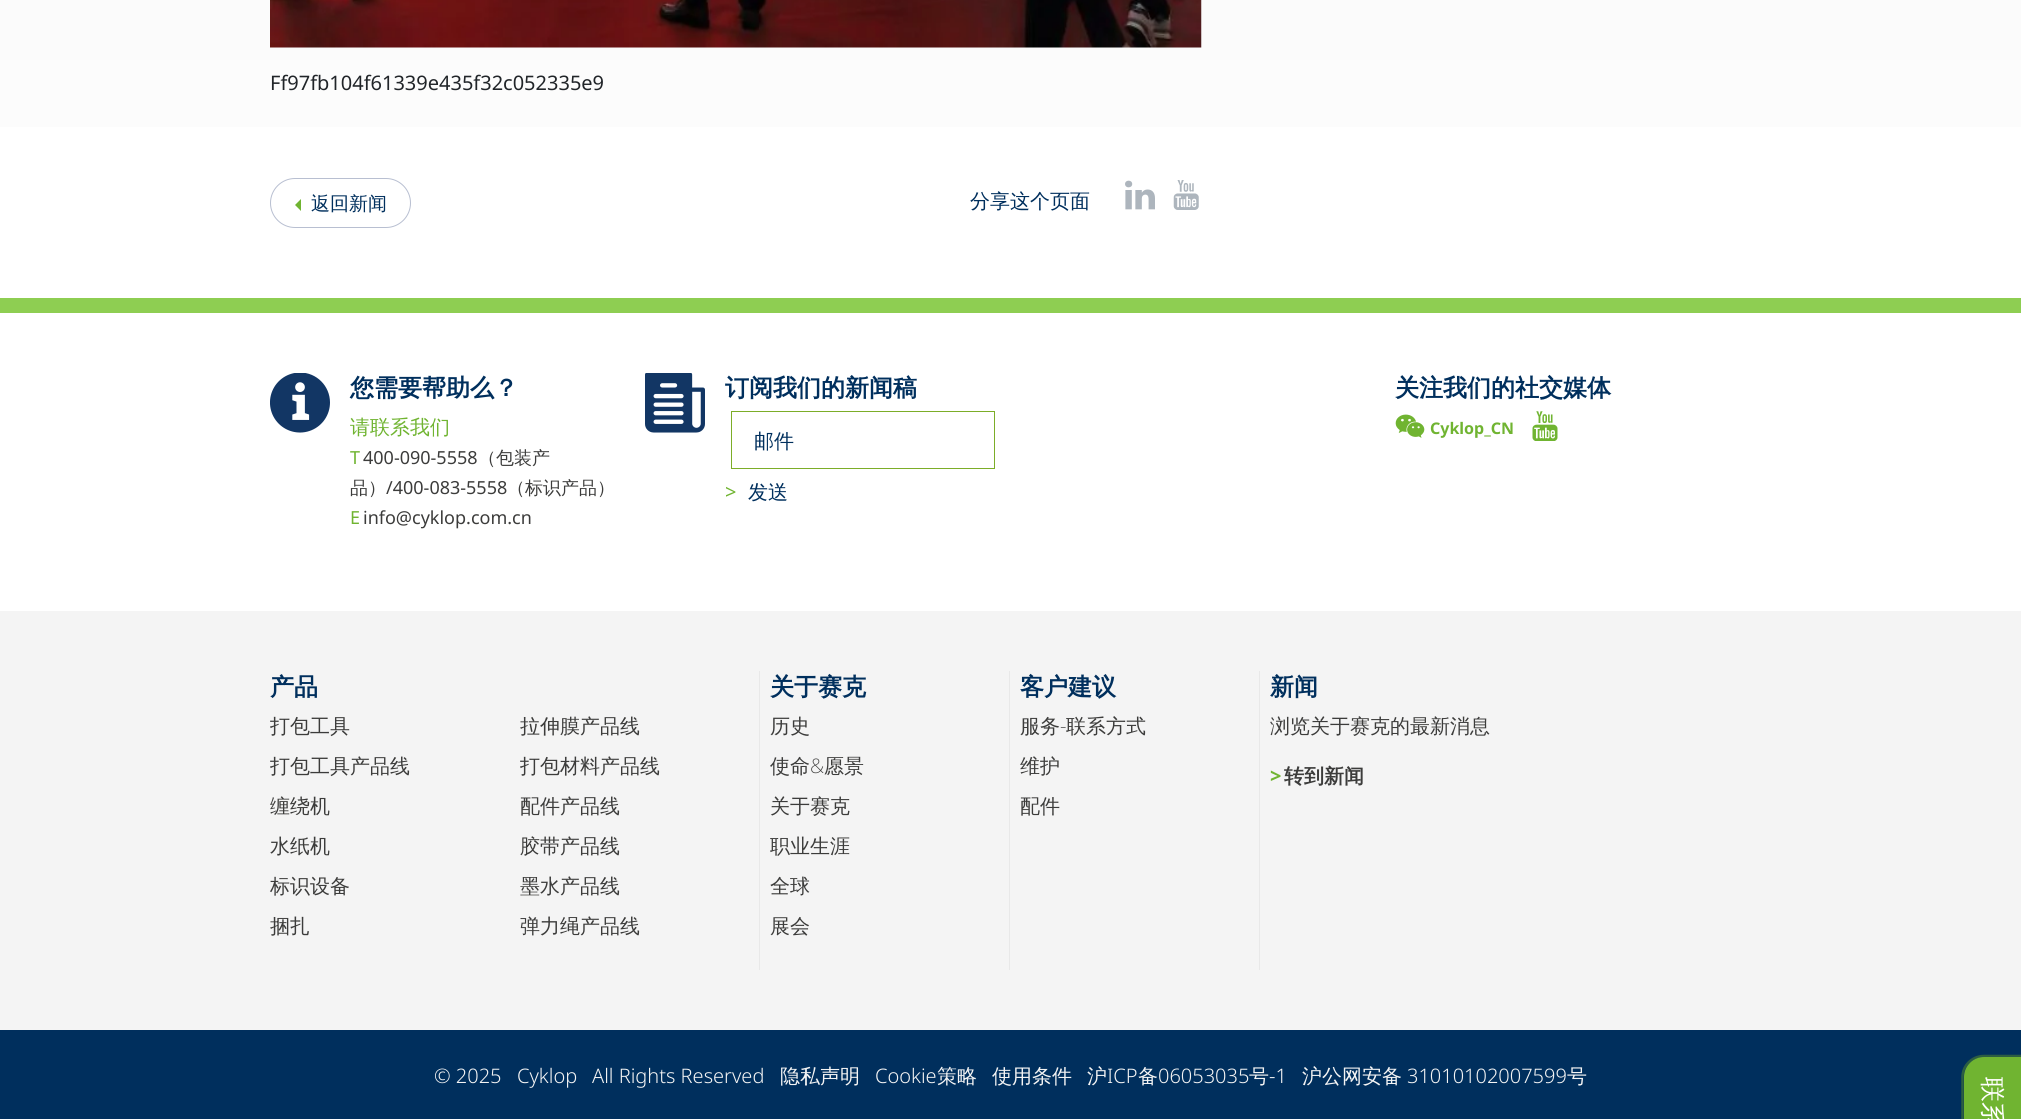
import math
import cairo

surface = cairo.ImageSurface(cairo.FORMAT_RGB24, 2021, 1119)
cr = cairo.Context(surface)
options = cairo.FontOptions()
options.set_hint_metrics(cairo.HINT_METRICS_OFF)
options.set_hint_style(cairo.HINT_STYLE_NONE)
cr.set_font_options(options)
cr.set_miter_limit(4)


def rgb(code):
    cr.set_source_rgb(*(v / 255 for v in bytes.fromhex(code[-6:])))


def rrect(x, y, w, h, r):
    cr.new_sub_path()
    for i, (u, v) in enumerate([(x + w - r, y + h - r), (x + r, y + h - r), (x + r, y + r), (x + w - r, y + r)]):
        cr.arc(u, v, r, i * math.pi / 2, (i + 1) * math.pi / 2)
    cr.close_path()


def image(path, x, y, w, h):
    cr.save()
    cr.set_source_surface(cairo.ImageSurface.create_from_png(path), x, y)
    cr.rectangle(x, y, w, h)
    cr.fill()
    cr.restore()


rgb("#ffffff")
cr.paint()
gradient = cairo.LinearGradient(1011, -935, 1011, 298)
gradient.add_color_stop_rgba(0, 0.929, 0.929, 0.929, 1)
gradient.add_color_stop_rgba(1, 1, 1, 1, 1)
cr.set_source(gradient)
cr.rectangle(0, 0, 2021, 127)
cr.fill()
image("img/1.png", 270, 0, 932, 48)
rrect(270.5, 178.5, 140, 49, 24.5)
rgb("#b8bfd1")
cr.set_line_width(1)
cr.stroke()
rgb("#70b431")
cr.new_path()
cr.move_to(301, 199)
cr.line_to(301, 211)
cr.line_to(295, 205)
cr.close_path()
cr.fill()
image("img/2.png", 1125, 180, 30, 30)
image("img/3.png", 1173, 180, 26, 30)
rgb("#8ece52")
cr.rectangle(0, 298, 2021, 15)
cr.fill()
image("img/4.png", 270, 373, 60, 60)
image("img/5.png", 645, 373, 60, 60)
cr.rectangle(731.5, 411.5, 263, 57)
rgb("#7cad28")
cr.stroke()
image("img/6.png", 1395, 414, 30, 24)
image("img/7.png", 1532, 411, 26, 30)
for x, y, w, h, color in [
    (0, 611, 2021, 419, "#f4f4f4"),
    (759, 671, 1, 299, "#e8e8e8"),
    (1009, 671, 1, 299, "#e8e8e8"),
    (1259, 671, 1, 299, "#e8e8e8"),
    (0, 1030, 2021, 89, "#002f5d"),
]:
    rgb(color)
    cr.rectangle(x, y, w, h)
    cr.fill()
cr.new_path()
cr.move_to(1962.5, 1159.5)
cr.line_to(1962.5, 1077)
cr.curve_to(1962.5, 1065.5, 1972, 1056, 1984, 1056)
cr.line_to(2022.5, 1056)
cr.line_to(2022.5, 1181)
cr.line_to(1984, 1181)
cr.curve_to(1972, 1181, 1962.5, 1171.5, 1962.5, 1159.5)
cr.close_path()
rgb("#2c5e42")
cr.set_line_width(2.5)
cr.stroke()
rgb("#70b431")
cr.new_path()
cr.move_to(1964, 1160)
cr.line_to(1964, 1077)
cr.curve_to(1964, 1066, 1973, 1057, 1984, 1057)
cr.line_to(2021, 1057)
cr.line_to(2021, 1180)
cr.line_to(1984, 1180)
cr.curve_to(1973, 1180, 1964, 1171, 1964, 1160)
cr.close_path()
cr.fill()
cr.select_font_face("Noto Sans")
cr.set_font_size(20)
rgb("#212529")
cr.move_to(270, 90)
cr.show_text("Ff97fb104f61339e435f32c052335e9")
cr.select_font_face("WenQuanYi Zen Hei Medium")
cr.set_font_size(19)
rgb("#002f5d")
cr.move_to(311, 210)
cr.show_text("返回新闻")
cr.set_font_size(20)
cr.move_to(970, 208)
cr.show_text("分享这个页面")
cr.select_font_face("WenQuanYi Zen Hei", cairo.FONT_SLANT_NORMAL, cairo.FONT_WEIGHT_BOLD)
cr.set_font_size(24)
cr.move_to(350, 396)
cr.show_text("您需要帮助么？")
cr.select_font_face("WenQuanYi Zen Hei Medium")
cr.set_font_size(20)
rgb("#70b431")
cr.move_to(350, 434)
cr.show_text("请联系我们")
cr.select_font_face("Noto Sans")
cr.set_font_size(18)
cr.move_to(350, 464)
cr.show_text("T")
rgb("#3c3c3b")
cr.move_to(363, 464)
cr.show_text("400-090-5558")
cr.select_font_face("WenQuanYi Zen Hei Medium")
cr.move_to(478, 464)
cr.show_text("（包装产")
cr.move_to(350, 494)
cr.show_text("品）")
cr.select_font_face("Noto Sans")
cr.move_to(386, 494)
cr.show_text("/400-083-5558")
cr.select_font_face("WenQuanYi Zen Hei Medium")
cr.move_to(507, 494)
cr.show_text("（标识产品）")
cr.select_font_face("Noto Sans")
rgb("#70b431")
cr.move_to(350, 524)
cr.show_text("E")
rgb("#3c3c3b")
cr.move_to(363, 524)
cr.show_text("info@cyklop.com.cn")
cr.select_font_face("WenQuanYi Zen Hei", cairo.FONT_SLANT_NORMAL, cairo.FONT_WEIGHT_BOLD)
cr.set_font_size(24)
rgb("#002f5d")
cr.move_to(725, 396)
cr.show_text("订阅我们的新闻稿")
cr.select_font_face("WenQuanYi Zen Hei Medium")
cr.set_font_size(20)
cr.move_to(754, 448)
cr.show_text("邮件")
cr.select_font_face("Noto Sans")
rgb("#70b431")
cr.move_to(725, 499)
cr.show_text(">")
cr.select_font_face("WenQuanYi Zen Hei Medium")
rgb("#002f5d")
cr.move_to(748, 499)
cr.show_text("发送")
cr.select_font_face("WenQuanYi Zen Hei", cairo.FONT_SLANT_NORMAL, cairo.FONT_WEIGHT_BOLD)
cr.set_font_size(24)
cr.move_to(1395, 396)
cr.show_text("关注我们的社交媒体")
cr.select_font_face("Noto Sans", cairo.FONT_SLANT_NORMAL, cairo.FONT_WEIGHT_BOLD)
cr.set_font_size(16)
rgb("#70b431")
cr.move_to(1430, 434)
cr.show_text("Cyklop_CN")
cr.select_font_face("WenQuanYi Zen Hei", cairo.FONT_SLANT_NORMAL, cairo.FONT_WEIGHT_BOLD)
cr.set_font_size(24)
rgb("#002f5d")
cr.move_to(270, 695)
cr.show_text("产品")
cr.select_font_face("WenQuanYi Zen Hei Medium")
cr.set_font_size(20)
rgb("#3c3c3b")
for x, y, s in [
    (270, 733, "打包工具"),
    (520, 733, "拉伸膜产品线"),
    (270, 773, "打包工具产品线"),
    (520, 773, "打包材料产品线"),
    (270, 813, "缠绕机"),
    (520, 813, "配件产品线"),
    (270, 853, "水纸机"),
    (520, 853, "胶带产品线"),
    (270, 893, "标识设备"),
    (520, 893, "墨水产品线"),
    (270, 933, "捆扎"),
    (520, 933, "弹力绳产品线"),
]:
    cr.move_to(x, y)
    cr.show_text(s)
cr.select_font_face("WenQuanYi Zen Hei", cairo.FONT_SLANT_NORMAL, cairo.FONT_WEIGHT_BOLD)
cr.set_font_size(24)
rgb("#002f5d")
cr.move_to(770, 695)
cr.show_text("关于赛克")
cr.select_font_face("WenQuanYi Zen Hei Medium")
cr.set_font_size(20)
rgb("#3c3c3b")
cr.move_to(770, 733)
cr.show_text("历史")
cr.move_to(770, 773)
cr.show_text("使命")
cr.select_font_face("Noto Sans ExtraLight")
cr.move_to(810, 773)
cr.show_text("&")
cr.select_font_face("WenQuanYi Zen Hei Medium")
for x, y, s in [
    (824, 773, "愿景"),
    (770, 813, "关于赛克"),
    (770, 853, "职业生涯"),
    (770, 893, "全球"),
    (770, 933, "展会"),
]:
    cr.move_to(x, y)
    cr.show_text(s)
cr.select_font_face("WenQuanYi Zen Hei", cairo.FONT_SLANT_NORMAL, cairo.FONT_WEIGHT_BOLD)
cr.set_font_size(24)
rgb("#002f5d")
cr.move_to(1020, 695)
cr.show_text("客户建议")
cr.select_font_face("WenQuanYi Zen Hei Medium")
cr.set_font_size(20)
rgb("#3c3c3b")
cr.move_to(1020, 733)
cr.show_text("服务")
cr.select_font_face("Noto Sans ExtraLight")
cr.move_to(1060, 733)
cr.show_text("-")
cr.select_font_face("WenQuanYi Zen Hei Medium")
for x, y, s in [
    (1066, 733, "联系方式"),
    (1020, 773, "维护"),
    (1020, 813, "配件"),
]:
    cr.move_to(x, y)
    cr.show_text(s)
cr.select_font_face("WenQuanYi Zen Hei", cairo.FONT_SLANT_NORMAL, cairo.FONT_WEIGHT_BOLD)
cr.set_font_size(24)
rgb("#002f5d")
cr.move_to(1270, 695)
cr.show_text("新闻")
cr.select_font_face("WenQuanYi Zen Hei Medium")
cr.set_font_size(20)
rgb("#3c3c3b")
cr.move_to(1270, 733)
cr.show_text("浏览关于赛克的最新消息")
cr.select_font_face("Noto Sans", cairo.FONT_SLANT_NORMAL, cairo.FONT_WEIGHT_BOLD)
rgb("#70b431")
cr.move_to(1270, 783)
cr.show_text(">")
cr.select_font_face("WenQuanYi Zen Hei", cairo.FONT_SLANT_NORMAL, cairo.FONT_WEIGHT_BOLD)
rgb("#3c3c3b")
cr.move_to(1284, 783)
cr.show_text("转到新闻")
cr.select_font_face("Noto Sans Light")
rgb("#f4f4f4")
for x, y, s in [
    (434, 1083, "© 2025"),
    (517, 1083, "Cyklop"),
    (592, 1083, "All Rights Reserved"),
]:
    cr.move_to(x, y)
    cr.show_text(s)
cr.select_font_face("WenQuanYi Zen Hei Medium")
cr.move_to(780, 1083)
cr.show_text("隐私声明")
cr.select_font_face("Noto Sans Light")
cr.move_to(875, 1083)
cr.show_text("Cookie")
cr.select_font_face("WenQuanYi Zen Hei Medium")
for x, y, s in [
    (937, 1083, "策略"),
    (992, 1083, "使用条件"),
    (1087, 1083, "沪"),
]:
    cr.move_to(x, y)
    cr.show_text(s)
cr.select_font_face("Noto Sans Light")
cr.move_to(1107, 1083)
cr.show_text("ICP")
cr.select_font_face("WenQuanYi Zen Hei Medium")
cr.move_to(1138, 1083)
cr.show_text("备")
cr.select_font_face("Noto Sans Light")
cr.move_to(1158, 1083)
cr.show_text("06053035")
cr.select_font_face("WenQuanYi Zen Hei Medium")
cr.move_to(1249, 1083)
cr.show_text("号")
cr.select_font_face("Noto Sans Light")
cr.move_to(1269, 1083)
cr.show_text("-1")
cr.select_font_face("WenQuanYi Zen Hei Medium")
cr.move_to(1302, 1083)
cr.show_text("沪公网安备")
cr.select_font_face("Noto Sans Light")
cr.move_to(1407, 1083)
cr.show_text("31010102007599")
cr.select_font_face("WenQuanYi Zen Hei Medium")
cr.move_to(1567, 1083)
cr.show_text("号")
cr.set_font_size(25)
rgb("#ffffff")
cr.save()
cr.translate(1984, 1077)
cr.rotate(90 * math.pi / 180)
cr.move_to(0, 0)
cr.show_text("联系")
cr.restore()
surface.write_to_png("page.png")
